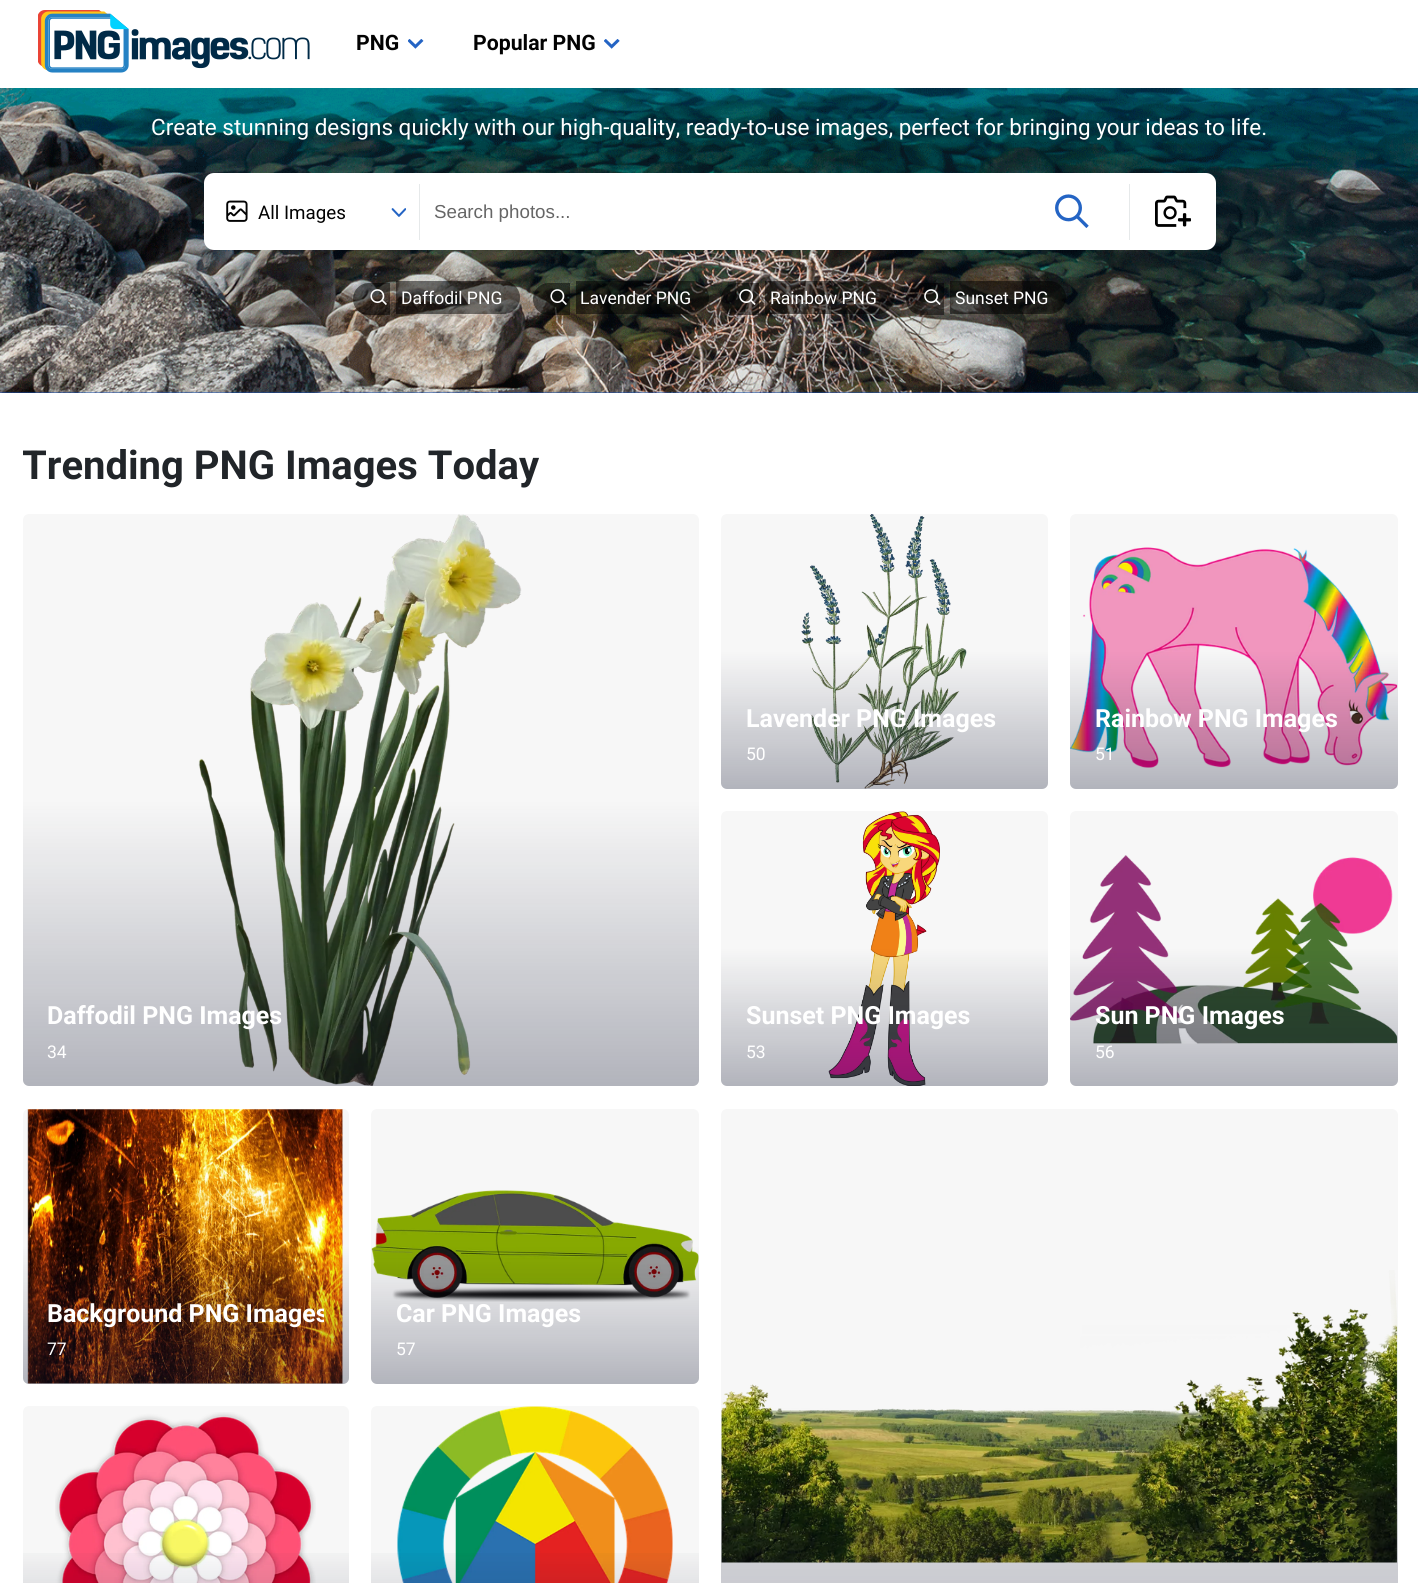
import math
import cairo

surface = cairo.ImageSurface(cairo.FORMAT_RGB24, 1418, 1583)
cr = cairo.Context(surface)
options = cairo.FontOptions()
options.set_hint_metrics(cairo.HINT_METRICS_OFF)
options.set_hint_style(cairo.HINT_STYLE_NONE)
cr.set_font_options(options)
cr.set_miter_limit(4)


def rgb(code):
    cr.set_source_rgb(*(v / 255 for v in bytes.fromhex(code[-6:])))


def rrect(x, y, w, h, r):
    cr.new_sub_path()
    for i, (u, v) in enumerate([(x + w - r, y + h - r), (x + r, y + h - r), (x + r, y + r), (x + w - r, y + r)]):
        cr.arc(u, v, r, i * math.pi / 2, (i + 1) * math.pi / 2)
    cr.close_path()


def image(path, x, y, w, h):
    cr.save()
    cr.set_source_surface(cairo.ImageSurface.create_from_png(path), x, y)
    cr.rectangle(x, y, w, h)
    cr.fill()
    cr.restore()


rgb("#ffffff")
cr.paint()
image("img/1.png", 38, 10, 272, 63)
image("img/2.png", 408, 39, 16, 10)
image("img/3.png", 604, 39, 16, 10)
rgb("#0c45a5")
cr.rectangle(0, 392, 1418, 1)
cr.fill()
image("img/4.png", 0, 88, 1418, 305)
rgb("#ffffff")
rrect(204, 173, 1012, 77, 10)
cr.fill()
image("img/5.png", 226, 200, 22, 22)
image("img/6.png", 391, 208, 15, 9)
rgb("#e6e9ea")
cr.rectangle(419, 184, 1, 56)
cr.fill()
image("img/7.png", 1055, 194, 34, 34)
cr.rectangle(1129, 184, 1, 56)
cr.fill()
image("img/8.png", 1155, 195, 36, 32)
cr.set_source_rgba(0, 0, 0, 0.5)
cr.new_path()
cr.move_to(369, 283)
cr.line_to(390, 283)
cr.line_to(390, 315)
cr.line_to(369, 315)
cr.curve_to(360, 315, 353, 308, 353, 299)
cr.curve_to(353, 290, 360, 283, 369, 283)
cr.close_path()
cr.fill()
image("img/9.png", 370, 289, 17, 16)
cr.new_path()
cr.move_to(396, 281)
cr.line_to(503.5, 281)
cr.curve_to(512.5, 281, 520, 288.5, 520, 297.5)
cr.curve_to(520, 306.5, 512.5, 314, 503.5, 314)
cr.line_to(396, 314)
cr.close_path()
cr.fill()
cr.new_path()
cr.move_to(549, 283)
cr.line_to(570, 283)
cr.line_to(570, 315)
cr.line_to(549, 315)
cr.curve_to(540, 315, 533, 308, 533, 299)
cr.curve_to(533, 290, 540, 283, 549, 283)
cr.close_path()
cr.fill()
image("img/10.png", 550, 289, 17, 16)
cr.new_path()
cr.move_to(576, 281)
cr.line_to(692.5, 281)
cr.curve_to(701.5, 281, 709, 288.5, 709, 297.5)
cr.curve_to(709, 306.5, 701.5, 314, 692.5, 314)
cr.line_to(576, 314)
cr.close_path()
cr.fill()
cr.new_path()
cr.move_to(737, 283)
cr.line_to(759, 283)
cr.line_to(759, 315)
cr.line_to(737, 315)
cr.curve_to(728, 315, 721, 308, 721, 299)
cr.curve_to(721, 290, 728, 283, 737, 283)
cr.close_path()
cr.fill()
image("img/11.png", 739, 289, 17, 16)
cr.new_path()
cr.move_to(765, 281)
cr.line_to(877.5, 281)
cr.curve_to(886.5, 281, 894, 288.5, 894, 297.5)
cr.curve_to(894, 306.5, 886.5, 314, 877.5, 314)
cr.line_to(765, 314)
cr.close_path()
cr.fill()
cr.new_path()
cr.move_to(922, 283)
cr.line_to(944, 283)
cr.line_to(944, 315)
cr.line_to(922, 315)
cr.curve_to(913, 315, 906, 308, 906, 299)
cr.curve_to(906, 290, 913, 283, 922, 283)
cr.close_path()
cr.fill()
image("img/12.png", 924, 289, 17, 16)
cr.new_path()
cr.move_to(950, 281)
cr.line_to(1049.5, 281)
cr.curve_to(1058.5, 281, 1066, 288.5, 1066, 297.5)
cr.curve_to(1066, 306.5, 1058.5, 314, 1049.5, 314)
cr.line_to(950, 314)
cr.close_path()
cr.fill()
rgb("#f7f7f7")
rrect(23, 514, 676, 572, 6)
cr.fill()
image("img/13.png", 198, 514, 324, 572)
gradient = cairo.LinearGradient(361, 514, 361, 1086)
gradient.add_color_stop_rgba(0, 0.071, 0.09, 0.196, 0)
gradient.add_color_stop_rgba(0.5, 0.071, 0.09, 0.196, 0)
gradient.add_color_stop_rgba(1, 0.071, 0.09, 0.196, 0.3)
cr.set_source(gradient)
rrect(23, 514, 676, 572, 6)
cr.fill()
rgb("#f7f7f7")
rrect(721, 514, 327, 275, 6)
cr.fill()
image("img/14.png", 801, 514, 166, 275)
gradient = cairo.LinearGradient(884, 514, 884, 789)
gradient.add_color_stop_rgba(0, 0.071, 0.09, 0.196, 0)
gradient.add_color_stop_rgba(0.5, 0.071, 0.09, 0.196, 0)
gradient.add_color_stop_rgba(1, 0.071, 0.09, 0.196, 0.3)
cr.set_source(gradient)
rrect(721, 514, 327, 275, 6)
cr.fill()
rgb("#f7f7f7")
rrect(1070, 514, 328, 275, 6)
cr.fill()
image("img/15.png", 1070, 547, 328, 221)
gradient = cairo.LinearGradient(1234, 514, 1234, 789)
gradient.add_color_stop_rgba(0, 0.071, 0.09, 0.196, 0)
gradient.add_color_stop_rgba(0.5, 0.071, 0.09, 0.196, 0)
gradient.add_color_stop_rgba(1, 0.071, 0.09, 0.196, 0.3)
cr.set_source(gradient)
rrect(1070, 514, 328, 275, 6)
cr.fill()
rgb("#f7f7f7")
rrect(721, 811, 327, 275, 6)
cr.fill()
image("img/16.png", 828, 811, 112, 275)
gradient = cairo.LinearGradient(884, 811, 884, 1086)
gradient.add_color_stop_rgba(0, 0.071, 0.09, 0.196, 0)
gradient.add_color_stop_rgba(0.5, 0.071, 0.09, 0.196, 0)
gradient.add_color_stop_rgba(1, 0.071, 0.09, 0.196, 0.3)
cr.set_source(gradient)
rrect(721, 811, 327, 275, 6)
cr.fill()
rgb("#f7f7f7")
rrect(1070, 811, 328, 275, 6)
cr.fill()
image("img/17.png", 1070, 855, 328, 189)
gradient = cairo.LinearGradient(1234, 811, 1234, 1086)
gradient.add_color_stop_rgba(0, 0.071, 0.09, 0.196, 0)
gradient.add_color_stop_rgba(0.5, 0.071, 0.09, 0.196, 0)
gradient.add_color_stop_rgba(1, 0.071, 0.09, 0.196, 0.3)
cr.set_source(gradient)
rrect(1070, 811, 328, 275, 6)
cr.fill()
rgb("#f7f7f7")
rrect(23, 1109, 326, 275, 6)
cr.fill()
image("img/18.png", 27, 1109, 316, 275)
gradient = cairo.LinearGradient(186, 1109, 186, 1384)
gradient.add_color_stop_rgba(0, 0.071, 0.09, 0.196, 0)
gradient.add_color_stop_rgba(0.5, 0.071, 0.09, 0.196, 0)
gradient.add_color_stop_rgba(1, 0.071, 0.09, 0.196, 0.3)
cr.set_source(gradient)
rrect(23, 1109, 326, 275, 6)
cr.fill()
rgb("#f7f7f7")
rrect(371, 1109, 328, 275, 6)
cr.fill()
image("img/19.png", 371, 1190, 328, 112)
gradient = cairo.LinearGradient(535, 1109, 535, 1384)
gradient.add_color_stop_rgba(0, 0.071, 0.09, 0.196, 0)
gradient.add_color_stop_rgba(0.5, 0.071, 0.09, 0.196, 0)
gradient.add_color_stop_rgba(1, 0.071, 0.09, 0.196, 0.3)
cr.set_source(gradient)
rrect(371, 1109, 328, 275, 6)
cr.fill()
rgb("#f7f7f7")
rrect(23, 1406, 326, 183, 6)
cr.fill()
image("img/20.png", 55, 1412, 261, 171)
gradient = cairo.LinearGradient(186, 1406, 186, 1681)
gradient.add_color_stop_rgba(0, 0.071, 0.09, 0.196, 0)
gradient.add_color_stop_rgba(0.5, 0.071, 0.09, 0.196, 0)
gradient.add_color_stop_rgba(1, 0.071, 0.09, 0.196, 0.3)
cr.set_source(gradient)
cr.rectangle(23, 1553, 326, 30)
cr.fill()
rgb("#f7f7f7")
rrect(371, 1406, 328, 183, 6)
cr.fill()
image("img/21.png", 397, 1406, 276, 177)
gradient = cairo.LinearGradient(535, 1406, 535, 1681)
gradient.add_color_stop_rgba(0, 0.071, 0.09, 0.196, 0)
gradient.add_color_stop_rgba(0.5, 0.071, 0.09, 0.196, 0)
gradient.add_color_stop_rgba(1, 0.071, 0.09, 0.196, 0.3)
cr.set_source(gradient)
cr.rectangle(371, 1553, 328, 30)
cr.fill()
rgb("#f7f7f7")
rrect(721, 1109, 677, 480, 6)
cr.fill()
image("img/22.png", 721, 1270, 677, 293)
gradient = cairo.LinearGradient(1059, 1109, 1059, 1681)
gradient.add_color_stop_rgba(0, 0.071, 0.09, 0.196, 0)
gradient.add_color_stop_rgba(0.5, 0.071, 0.09, 0.196, 0)
gradient.add_color_stop_rgba(1, 0.071, 0.09, 0.196, 0.3)
cr.set_source(gradient)
cr.rectangle(721, 1416, 677, 167)
cr.fill()
cr.select_font_face("Roboto", cairo.FONT_SLANT_NORMAL, cairo.FONT_WEIGHT_BOLD)
cr.set_font_size(21.25)
rgb("#020202")
cr.move_to(356, 50)
cr.show_text("PNG")
cr.move_to(473, 50)
cr.show_text("Popular PNG")
cr.select_font_face("Roboto")
cr.set_font_size(22.5)
rgb("#ffffff")
cr.move_to(151, 135)
cr.show_text("Create stunning designs quickly with our high-quality, ready-to-use images, perfect for bringing your ideas to life.")
cr.set_font_size(18.75)
rgb("#020202")
cr.move_to(258, 219)
cr.show_text("All Images")
cr.select_font_face("Liberation Sans")
rgb("#666666")
cr.move_to(434, 218)
cr.show_text("Search photos...")
cr.select_font_face("Roboto")
cr.set_font_size(17.5)
rgb("#ffffff")
for x, y, s in [
    (401, 304, "Daffodil PNG"),
    (580, 304, "Lavender PNG"),
    (770, 304, "Rainbow PNG"),
    (955, 304, "Sunset PNG"),
]:
    cr.move_to(x, y)
    cr.show_text(s)
cr.save()
cr.rectangle(23, 443, 1375, 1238)
cr.clip()
cr.select_font_face("Roboto", cairo.FONT_SLANT_NORMAL, cairo.FONT_WEIGHT_BOLD)
cr.set_font_size(40)
rgb("#212529")
cr.move_to(22, 479)
cr.show_text("Trending PNG Images Today")
cr.restore()
cr.select_font_face("Roboto", cairo.FONT_SLANT_NORMAL, cairo.FONT_WEIGHT_BOLD)
cr.set_font_size(25)
cr.move_to(47, 1024)
cr.show_text("Daffodil PNG Images")
cr.select_font_face("Roboto")
cr.set_font_size(17.5)
cr.move_to(47, 1058)
cr.show_text("34")
cr.select_font_face("Roboto", cairo.FONT_SLANT_NORMAL, cairo.FONT_WEIGHT_BOLD)
cr.set_font_size(25)
cr.move_to(746, 727)
cr.show_text("Lavender PNG Images")
cr.select_font_face("Roboto")
cr.set_font_size(17.5)
cr.move_to(746, 760)
cr.show_text("50")
cr.select_font_face("Roboto", cairo.FONT_SLANT_NORMAL, cairo.FONT_WEIGHT_BOLD)
cr.set_font_size(25)
cr.move_to(1095, 727)
cr.show_text("Rainbow PNG Images")
cr.select_font_face("Roboto")
cr.set_font_size(17.5)
cr.move_to(1095, 760)
cr.show_text("51")
cr.select_font_face("Roboto", cairo.FONT_SLANT_NORMAL, cairo.FONT_WEIGHT_BOLD)
cr.set_font_size(25)
cr.move_to(746, 1024)
cr.show_text("Sunset PNG Images")
cr.select_font_face("Roboto")
cr.set_font_size(17.5)
cr.move_to(746, 1058)
cr.show_text("53")
cr.select_font_face("Roboto", cairo.FONT_SLANT_NORMAL, cairo.FONT_WEIGHT_BOLD)
cr.set_font_size(25)
cr.move_to(1095, 1024)
cr.show_text("Sun PNG Images")
cr.select_font_face("Roboto")
cr.set_font_size(17.5)
cr.move_to(1095, 1058)
cr.show_text("56")
cr.save()
cr.rectangle(48, 1295, 276, 39)
cr.clip()
cr.select_font_face("Roboto", cairo.FONT_SLANT_NORMAL, cairo.FONT_WEIGHT_BOLD)
cr.set_font_size(25)
cr.move_to(47, 1322)
cr.show_text("Background PNG Images")
cr.restore()
cr.move_to(47, 1355)
cr.show_text("77")
cr.select_font_face("Roboto", cairo.FONT_SLANT_NORMAL, cairo.FONT_WEIGHT_BOLD)
cr.set_font_size(25)
cr.move_to(396, 1322)
cr.show_text("Car PNG Images")
cr.select_font_face("Roboto")
cr.set_font_size(17.5)
cr.move_to(396, 1355)
cr.show_text("57")
surface.write_to_png("page.png")
